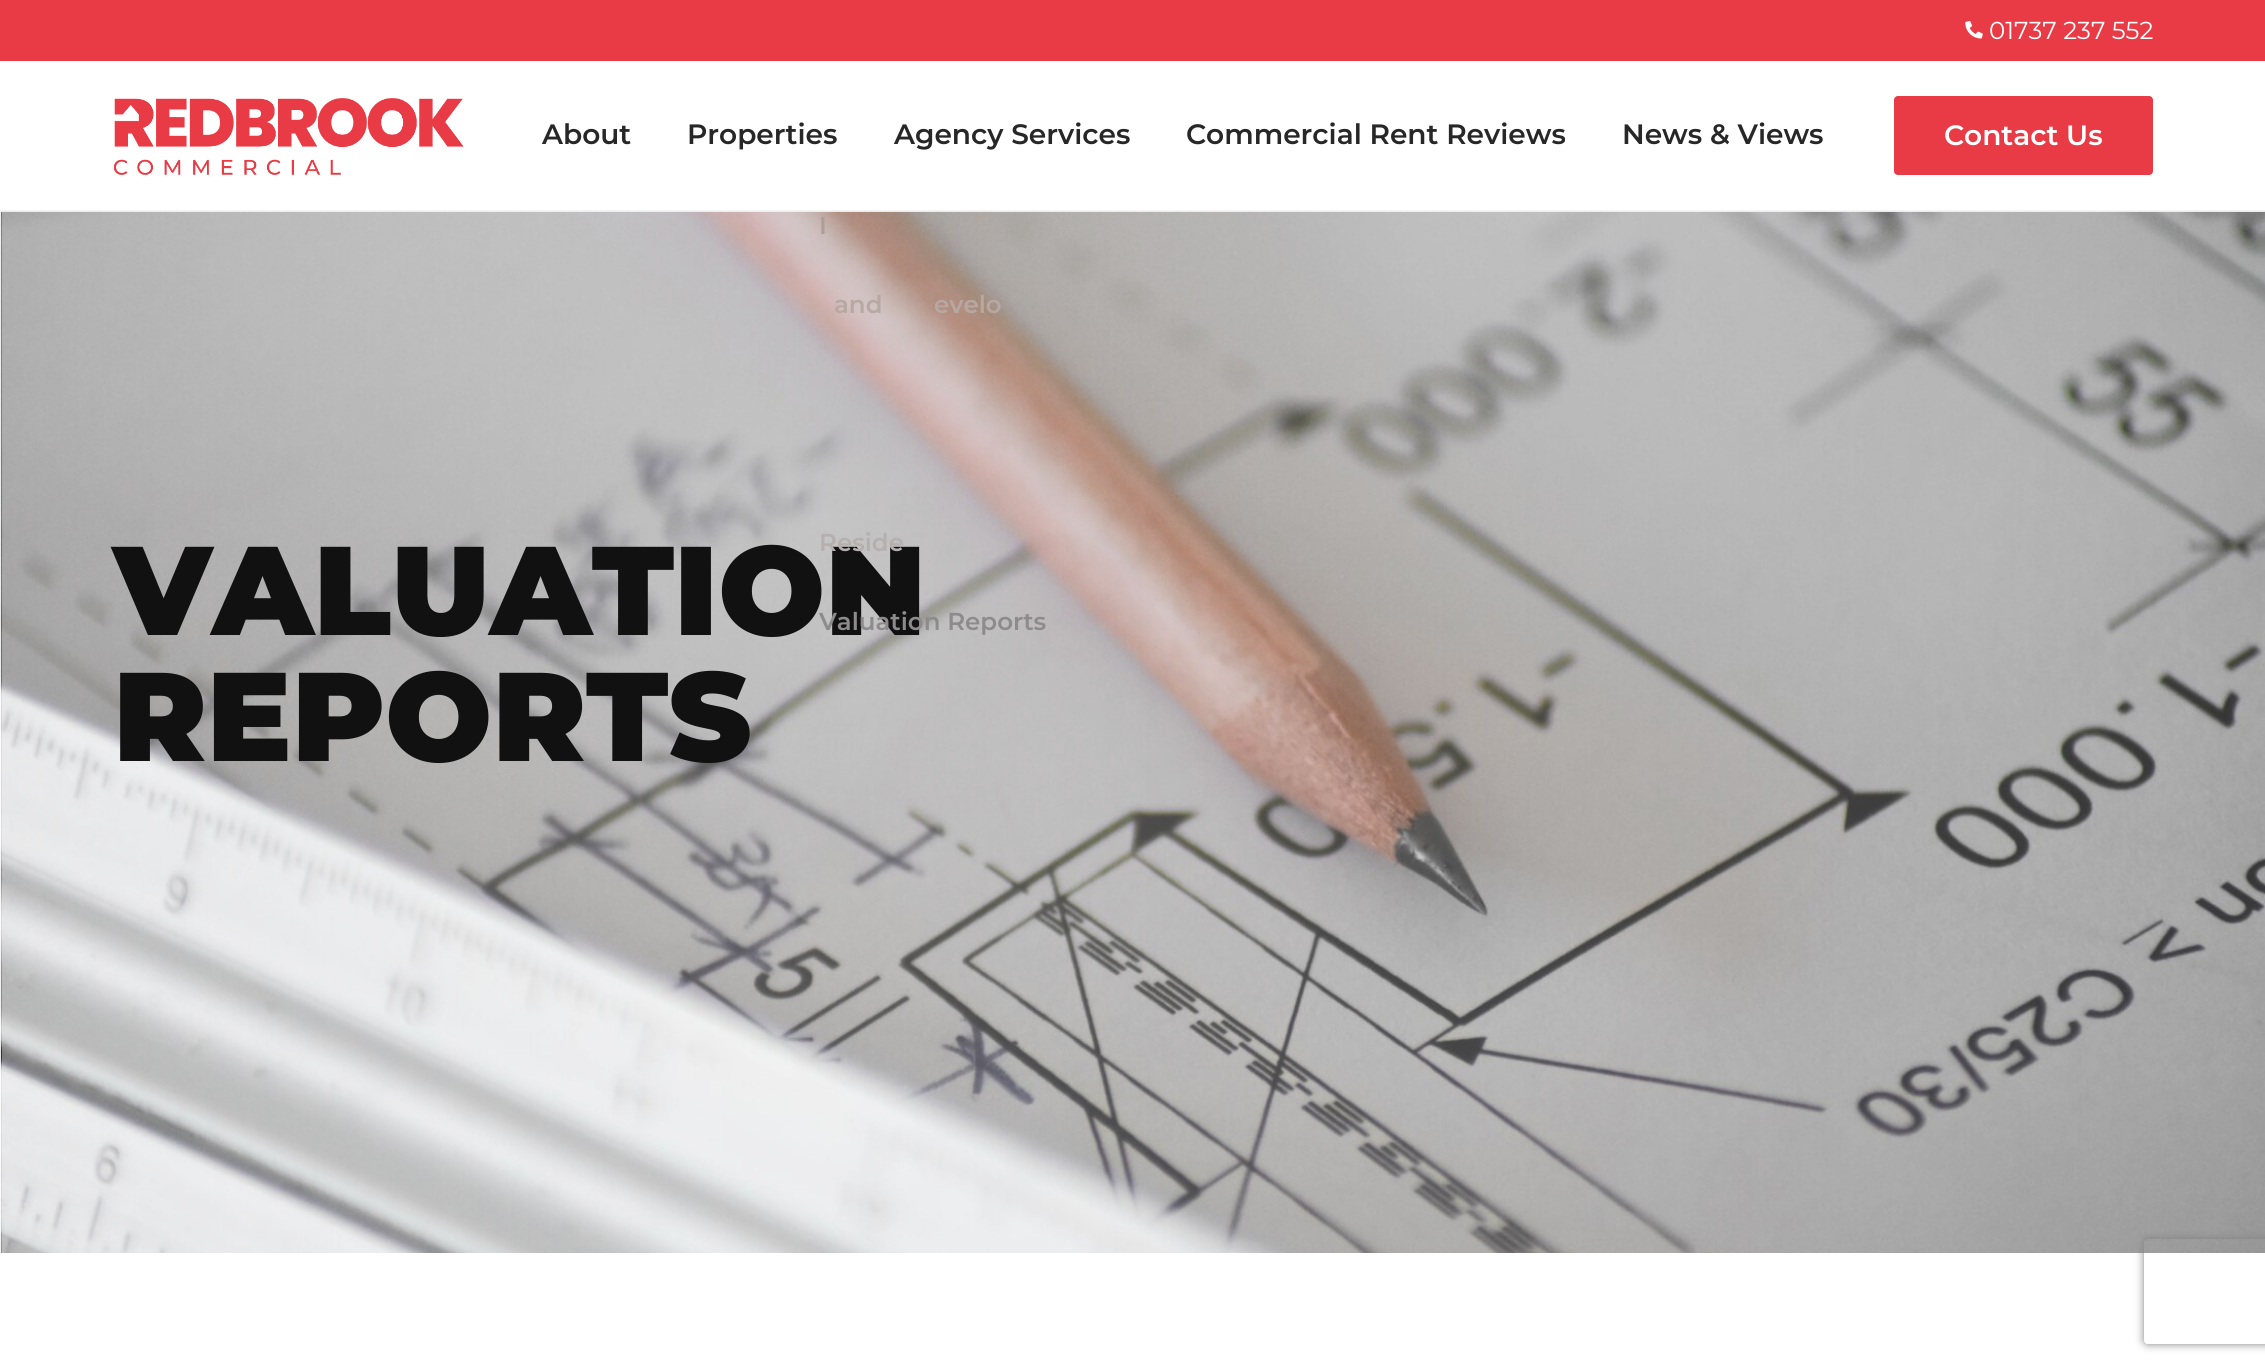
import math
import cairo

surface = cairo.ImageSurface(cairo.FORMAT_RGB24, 2265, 1368)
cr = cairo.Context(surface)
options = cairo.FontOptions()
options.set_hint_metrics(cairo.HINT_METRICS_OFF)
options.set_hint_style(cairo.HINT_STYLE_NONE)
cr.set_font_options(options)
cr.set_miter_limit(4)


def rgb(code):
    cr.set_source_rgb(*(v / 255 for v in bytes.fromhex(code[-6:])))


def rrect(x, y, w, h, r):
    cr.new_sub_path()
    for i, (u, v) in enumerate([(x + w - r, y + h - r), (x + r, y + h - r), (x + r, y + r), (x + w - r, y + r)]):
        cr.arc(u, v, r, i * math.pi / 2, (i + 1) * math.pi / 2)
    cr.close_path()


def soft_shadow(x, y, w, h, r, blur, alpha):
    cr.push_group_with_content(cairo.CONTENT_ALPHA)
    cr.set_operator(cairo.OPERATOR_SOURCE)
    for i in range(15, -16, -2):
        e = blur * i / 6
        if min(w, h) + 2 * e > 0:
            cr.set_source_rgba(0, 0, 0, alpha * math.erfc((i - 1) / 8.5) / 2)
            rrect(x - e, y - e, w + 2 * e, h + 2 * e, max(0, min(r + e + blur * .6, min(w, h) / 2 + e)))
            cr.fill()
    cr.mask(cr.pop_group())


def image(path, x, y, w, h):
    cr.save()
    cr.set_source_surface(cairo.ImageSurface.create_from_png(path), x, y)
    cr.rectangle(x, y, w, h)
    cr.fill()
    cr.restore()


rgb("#ffffff")
cr.paint()
rgb("#e83b45")
cr.rectangle(0, 0, 2265, 61)
cr.fill()
image("img/1.png", 1965, 21, 18, 18)
image("img/2.png", 0, 211, 2265, 1042)
cr.set_source_rgba(1, 1, 1, 0.8)
cr.rectangle(0, 211, 2265, 1)
cr.fill()
cr.set_source_rgba(0, 0, 0, 0.05)
cr.rectangle(0, 210, 2265, 2)
cr.fill()
image("img/3.png", 113, 98, 351, 77)
rgb("#e83b45")
rrect(1894, 96, 259, 79, 4)
cr.fill()
cr.save()
cr.set_fill_rule(cairo.FILL_RULE_EVEN_ODD)
cr.new_path()
cr.move_to(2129, 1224)
cr.line_to(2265, 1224)
cr.line_to(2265, 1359)
cr.line_to(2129, 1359)
cr.close_path()
cr.move_to(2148, 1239)
cr.line_to(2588, 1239)
cr.curve_to(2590, 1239, 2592, 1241, 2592, 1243)
cr.line_to(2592, 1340)
cr.curve_to(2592, 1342, 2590, 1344, 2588, 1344)
cr.line_to(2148, 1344)
cr.curve_to(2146, 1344, 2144, 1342, 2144, 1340)
cr.line_to(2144, 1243)
cr.curve_to(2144, 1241, 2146, 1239, 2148, 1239)
cr.close_path()
cr.clip()
rgb("#808080")
soft_shadow(2144, 1239, 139, 105, 4, 4.5, 1)
cr.restore()
cr.select_font_face("Montserrat")
cr.set_font_size(24.5)
rgb("#ffffff")
cr.move_to(1989, 39)
cr.show_text("01737 237 552")
cr.select_font_face("Montserrat Black")
cr.set_font_size(126)
rgb("#111111")
cr.move_to(113, 635)
cr.show_text("VALUATION")
cr.move_to(113, 761)
cr.show_text("REPORTS")
cr.select_font_face("Montserrat SemiBold")
cr.set_font_size(28)
rgb("#272727")
for x, y, s in [
    (542, 144, "About"),
    (687, 144, "Properties"),
    (894, 144, "Agency Services"),
]:
    cr.move_to(x, y)
    cr.show_text(s)
cr.set_font_size(24.5)
rgb("#ad9e97")
cr.move_to(819, 234)
cr.show_text("I")
rgb("#b6a8a2")
cr.move_to(834, 313)
cr.show_text("and")
cr.move_to(934, 313)
cr.show_text("evelo")
rgb("#b6aeaf")
cr.move_to(819, 551)
cr.show_text("Reside")
rgb("#8d8b8c")
cr.move_to(819, 630)
cr.show_text("Valuation Reports")
cr.set_font_size(28)
rgb("#272727")
cr.move_to(1186, 144)
cr.show_text("Commercial Rent Reviews")
cr.move_to(1622, 144)
cr.show_text("News & Views")
rgb("#ffffff")
cr.move_to(1944, 145)
cr.show_text("Contact Us")
surface.write_to_png("page.png")
